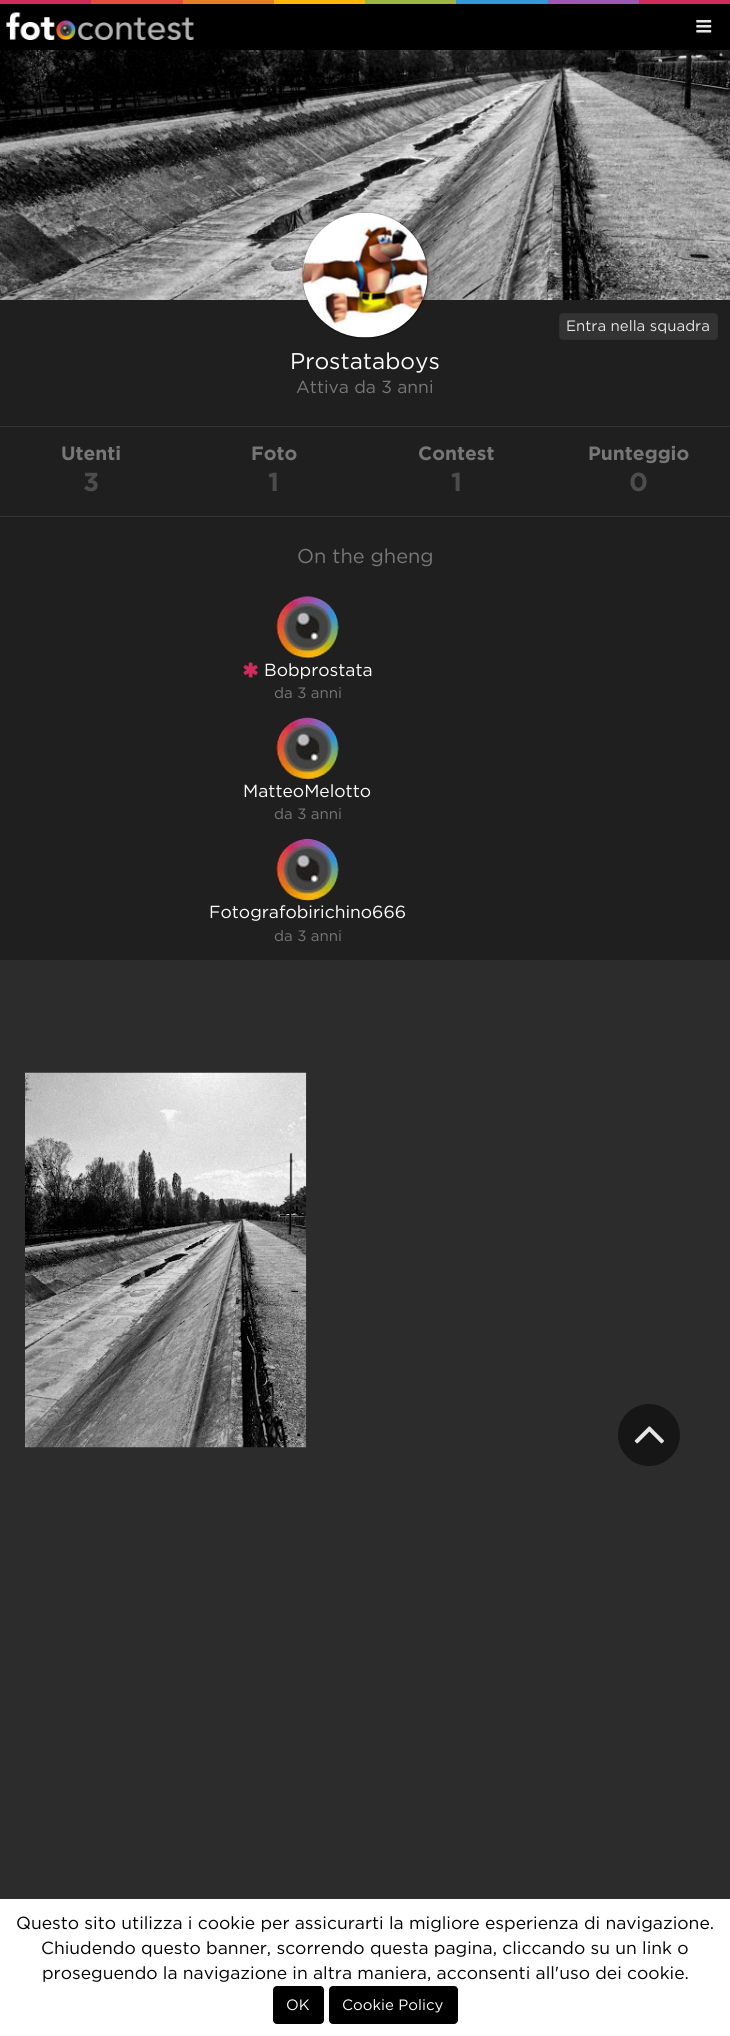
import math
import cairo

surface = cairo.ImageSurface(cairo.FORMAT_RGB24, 730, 2036)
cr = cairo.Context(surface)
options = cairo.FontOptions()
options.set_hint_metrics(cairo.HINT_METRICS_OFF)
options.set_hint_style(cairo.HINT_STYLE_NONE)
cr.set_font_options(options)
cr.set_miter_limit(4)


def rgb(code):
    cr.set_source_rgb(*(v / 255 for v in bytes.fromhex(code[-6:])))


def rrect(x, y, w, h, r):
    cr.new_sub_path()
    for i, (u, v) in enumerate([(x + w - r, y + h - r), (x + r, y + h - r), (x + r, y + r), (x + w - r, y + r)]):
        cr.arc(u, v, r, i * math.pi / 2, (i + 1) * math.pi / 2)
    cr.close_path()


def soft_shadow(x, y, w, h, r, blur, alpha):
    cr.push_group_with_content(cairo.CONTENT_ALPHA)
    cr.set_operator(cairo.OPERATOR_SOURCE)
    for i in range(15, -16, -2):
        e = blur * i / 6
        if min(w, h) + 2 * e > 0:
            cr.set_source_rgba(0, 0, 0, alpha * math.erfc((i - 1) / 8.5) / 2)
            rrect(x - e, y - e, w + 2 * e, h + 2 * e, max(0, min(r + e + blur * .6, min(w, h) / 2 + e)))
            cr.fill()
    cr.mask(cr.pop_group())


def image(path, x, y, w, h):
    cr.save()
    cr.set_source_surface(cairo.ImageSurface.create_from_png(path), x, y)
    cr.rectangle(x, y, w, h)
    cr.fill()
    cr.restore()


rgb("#2c2c2c")
cr.paint()
for x, y, w, h, color in [
    (0, 4, 730, 46, "#000000"),
    (0, 0, 91, 4, "#d12b5d"),
    (91, 0, 92, 4, "#e74c3c"),
    (183, 0, 91, 4, "#e67e22"),
    (274, 0, 91, 4, "#ffb606"),
    (365, 0, 91, 4, "#9cb641"),
    (456, 0, 92, 4, "#3498db"),
    (548, 0, 91, 4, "#9b59b6"),
    (639, 0, 91, 4, "#d12b5d"),
]:
    rgb(color)
    cr.rectangle(x, y, w, h)
    cr.fill()
image("img/1.png", 6, 12, 188, 28)
image("img/2.png", 696, 20, 16, 13)
image("img/3.png", 0, 50, 730, 250)
rgb("#1f1f1f")
cr.rectangle(0, 300, 730, 660)
cr.fill()
rgb("#333333")
rrect(559.5, 313.5, 158, 26, 3.5)
cr.fill_preserve()
rgb("#303030")
cr.set_line_width(1)
cr.stroke()
rgb("#000000")
soft_shadow(303, 213, 125, 125, 62.5, 1, 0.8)
image("img/4.png", 302, 212, 126, 126)
rgb("#353535")
cr.rectangle(0, 426, 730, 1)
cr.fill()
cr.rectangle(0, 516, 730, 1)
cr.fill()
image("img/5.png", 276, 596, 63, 63)
image("img/6.png", 243, 662, 15, 16)
image("img/7.png", 276, 717, 63, 63)
image("img/8.png", 276, 838, 63, 63)
image("img/9.png", 25, 1072, 282, 376)
rgb("#161616")
cr.arc(649, 1435, 31, 0, 2 * math.pi)
cr.fill()
image("img/10.png", 634, 1426, 30, 18)
rgb("#ffffff")
cr.rectangle(0, 1899, 730, 137)
cr.fill()
rgb("#000000")
rrect(273, 1986, 51, 38, 4)
cr.fill()
rrect(329, 1986, 129, 38, 4)
cr.fill()
cr.select_font_face("Gotham")
cr.set_font_size(15)
rgb("#e6e6e6")
cr.move_to(566, 331)
cr.show_text("Entra nella squadra")
cr.set_font_size(22.75)
rgb("#ffffff")
cr.move_to(290, 369)
cr.show_text("Prostataboys")
cr.set_font_size(17.5)
rgb("#777777")
cr.move_to(296, 393)
cr.show_text("Attiva da 3 anni")
cr.select_font_face("Gotham", cairo.FONT_SLANT_NORMAL, cairo.FONT_WEIGHT_BOLD)
cr.set_font_size(19.25)
cr.move_to(61, 460)
cr.show_text("Utenti")
cr.set_font_size(26)
rgb("#4c4c4c")
cr.move_to(83, 491)
cr.show_text("3")
cr.set_font_size(19.25)
rgb("#777777")
cr.move_to(251, 460)
cr.show_text("Foto")
cr.set_font_size(26)
rgb("#4c4c4c")
cr.move_to(268, 491)
cr.show_text("1")
cr.set_font_size(19.25)
rgb("#777777")
cr.move_to(418, 460)
cr.show_text("Contest")
cr.set_font_size(26)
rgb("#4c4c4c")
cr.move_to(451, 491)
cr.show_text("1")
cr.set_font_size(19.25)
rgb("#777777")
cr.move_to(588, 460)
cr.show_text("Punteggio")
cr.set_font_size(26)
rgb("#4c4c4c")
cr.move_to(629, 491)
cr.show_text("0")
cr.select_font_face("Gotham")
cr.set_font_size(20)
rgb("#777777")
cr.move_to(297, 563)
cr.show_text("On the gheng")
cr.set_font_size(17.5)
rgb("#ffffff")
cr.move_to(264, 676)
cr.show_text("Bobprostata")
cr.set_font_size(15)
rgb("#777777")
cr.move_to(274, 698)
cr.show_text("da 3 anni")
cr.set_font_size(17.5)
rgb("#ffffff")
cr.move_to(243, 797)
cr.show_text("MatteoMelotto")
cr.set_font_size(15)
rgb("#777777")
cr.move_to(274, 819)
cr.show_text("da 3 anni")
cr.set_font_size(17.5)
rgb("#ffffff")
cr.move_to(209, 918)
cr.show_text("Fotografobirichino666")
cr.set_font_size(15)
rgb("#777777")
cr.move_to(274, 941)
cr.show_text("da 3 anni")
cr.set_font_size(17.5)
rgb("#000000")
for x, y, s in [
    (16, 1929, "Questo sito utilizza i cookie per assicurarti la migliore esperienza di navigazione."),
    (41, 1954, "Chiudendo questo banner, scorrendo questa pagina, cliccando su un link o"),
    (42, 1979, "proseguendo la navigazione in altra maniera, acconsenti all'uso dei cookie."),
]:
    cr.move_to(x, y)
    cr.show_text(s)
cr.set_font_size(15)
rgb("#ffffff")
cr.move_to(286, 2010)
cr.show_text("OK")
cr.move_to(342, 2010)
cr.show_text("Cookie Policy")
surface.write_to_png("page.png")
